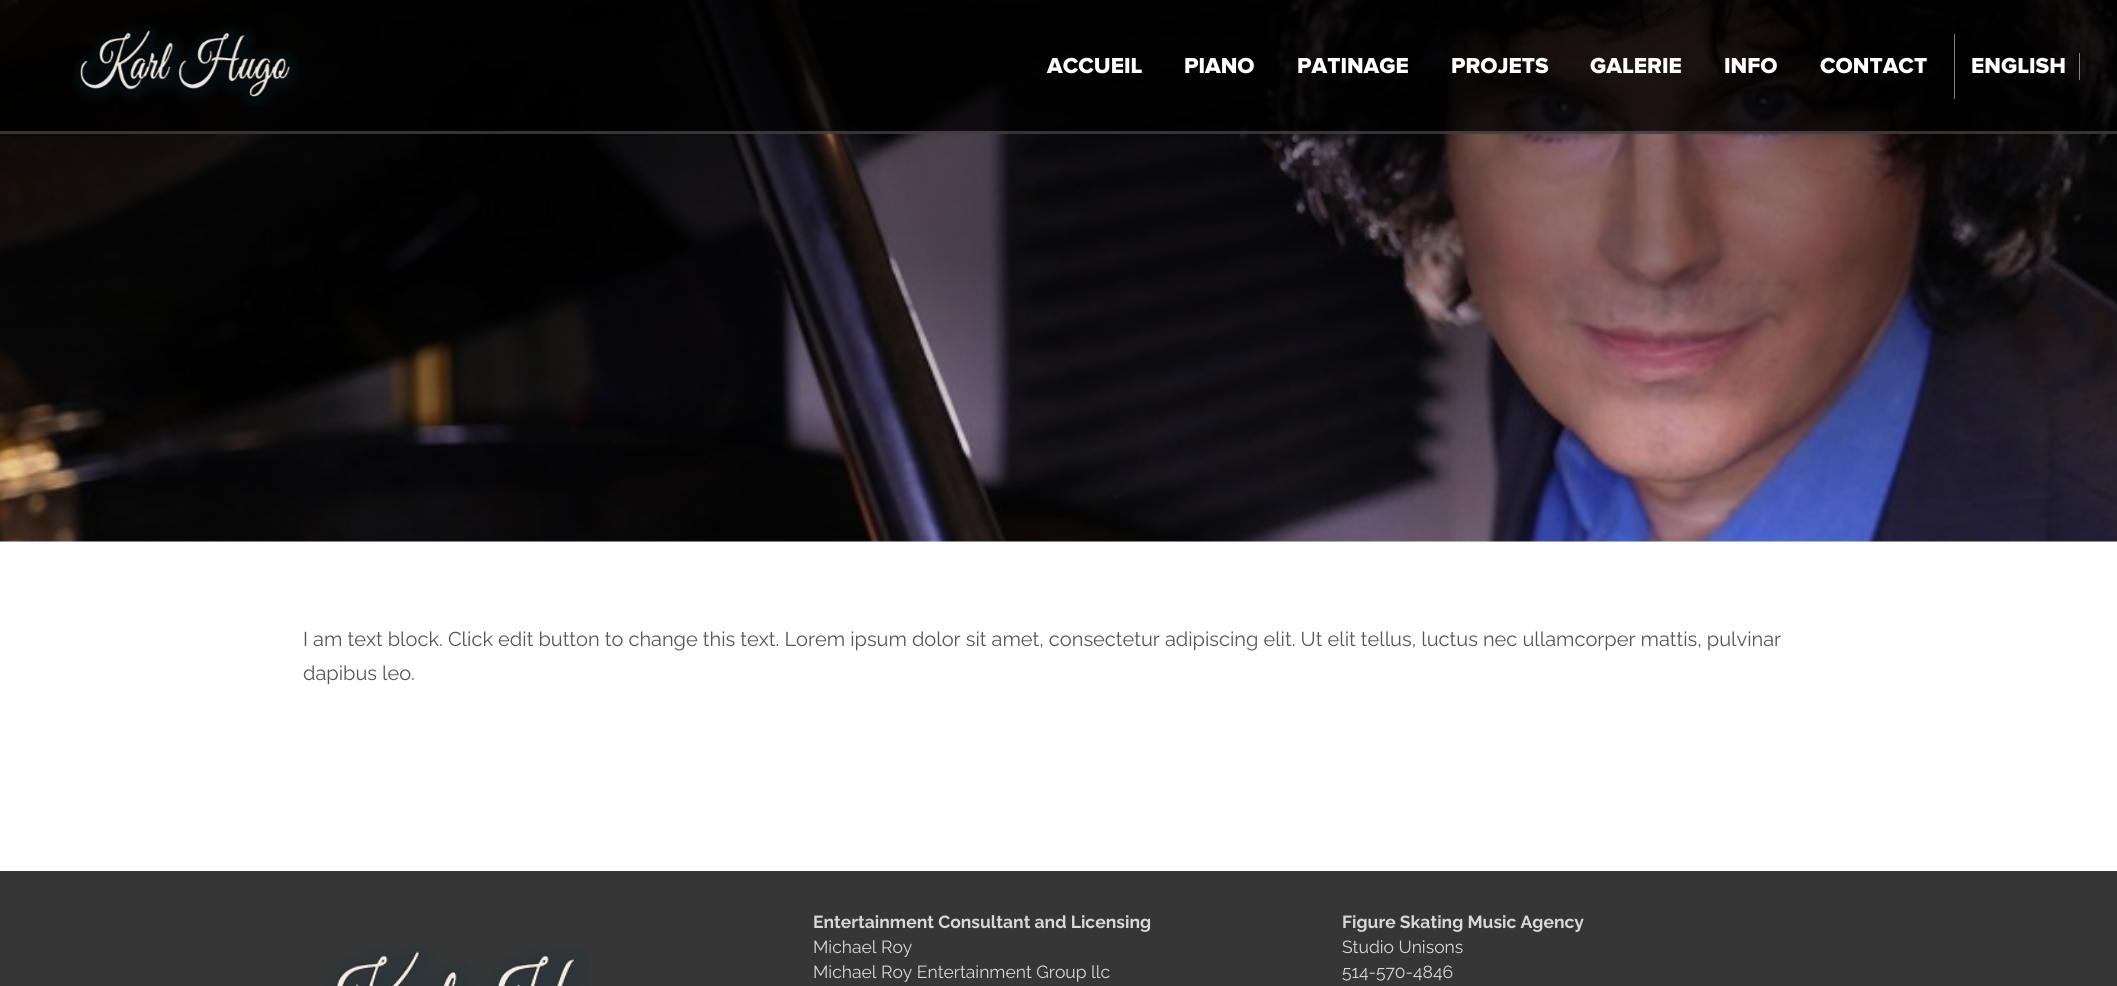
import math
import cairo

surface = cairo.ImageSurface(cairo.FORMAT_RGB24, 2117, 986)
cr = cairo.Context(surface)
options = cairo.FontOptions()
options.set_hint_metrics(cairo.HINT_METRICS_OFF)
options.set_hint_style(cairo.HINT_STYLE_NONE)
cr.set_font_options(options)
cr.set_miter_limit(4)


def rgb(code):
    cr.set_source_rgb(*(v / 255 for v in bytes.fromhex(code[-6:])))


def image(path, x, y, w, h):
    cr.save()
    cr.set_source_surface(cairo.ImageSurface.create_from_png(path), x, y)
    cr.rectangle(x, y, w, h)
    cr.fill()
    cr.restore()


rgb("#ffffff")
cr.paint()
image("img/1.png", 0, 0, 2117, 542)
cr.set_source_rgba(0, 0, 0, 0.8)
cr.rectangle(0, 0, 2117, 134)
cr.fill()
cr.set_source_rgba(1, 1, 1, 0.2)
cr.rectangle(0, 131, 2117, 3)
cr.fill()
image("img/2.png", 73, 25, 226, 82)
rgb("#808080")
cr.rectangle(1954, 34, 1, 65)
cr.fill()
cr.set_source_rgba(1, 1, 1, 0.5)
cr.rectangle(2079, 53, 1, 27)
cr.fill()
rgb("#363636")
cr.rectangle(0, 871, 2117, 115)
cr.fill()
image("img/3.png", 324, 942, 266, 44)
cr.select_font_face("Proxima Nova ExtraBold")
cr.set_font_size(22.5)
rgb("#ffffff")
for x, y, s in [
    (1047, 73, "ACCUEIL"),
    (1184, 73, "PIANO"),
    (1297, 73, "PATINAGE"),
    (1451, 73, "PROJETS"),
    (1590, 73, "GALERIE"),
    (1724, 73, "INFO"),
    (1820, 73, "CONTACT"),
    (1971, 73, "ENGLISH"),
]:
    cr.move_to(x, y)
    cr.show_text(s)
cr.select_font_face("Raleway")
cr.set_font_size(20)
rgb("#565656")
cr.move_to(303, 646)
cr.show_text("I am text block. Click edit button to change this text. Lorem ipsum dolor sit amet, consectetur adipiscing elit. Ut elit tellus, luctus nec ullamcorper mattis, pulvinar")
cr.move_to(303, 680)
cr.show_text("dapibus leo.")
cr.select_font_face("Raleway", cairo.FONT_SLANT_NORMAL, cairo.FONT_WEIGHT_BOLD)
cr.set_font_size(17.5)
rgb("#d8d8d8")
cr.move_to(813, 928)
cr.show_text("Entertainment Consultant and Licensing")
cr.select_font_face("Raleway")
cr.move_to(813, 953)
cr.show_text("Michael Roy")
cr.move_to(813, 978)
cr.show_text("Michael Roy Entertainment Group llc")
cr.select_font_face("Raleway", cairo.FONT_SLANT_NORMAL, cairo.FONT_WEIGHT_BOLD)
cr.move_to(1342, 928)
cr.show_text("Figure Skating Music Agency")
cr.select_font_face("Raleway")
cr.move_to(1342, 953)
cr.show_text("Studio Unisons")
cr.move_to(1342, 978)
cr.show_text("514-570-4846")
surface.write_to_png("page.png")
